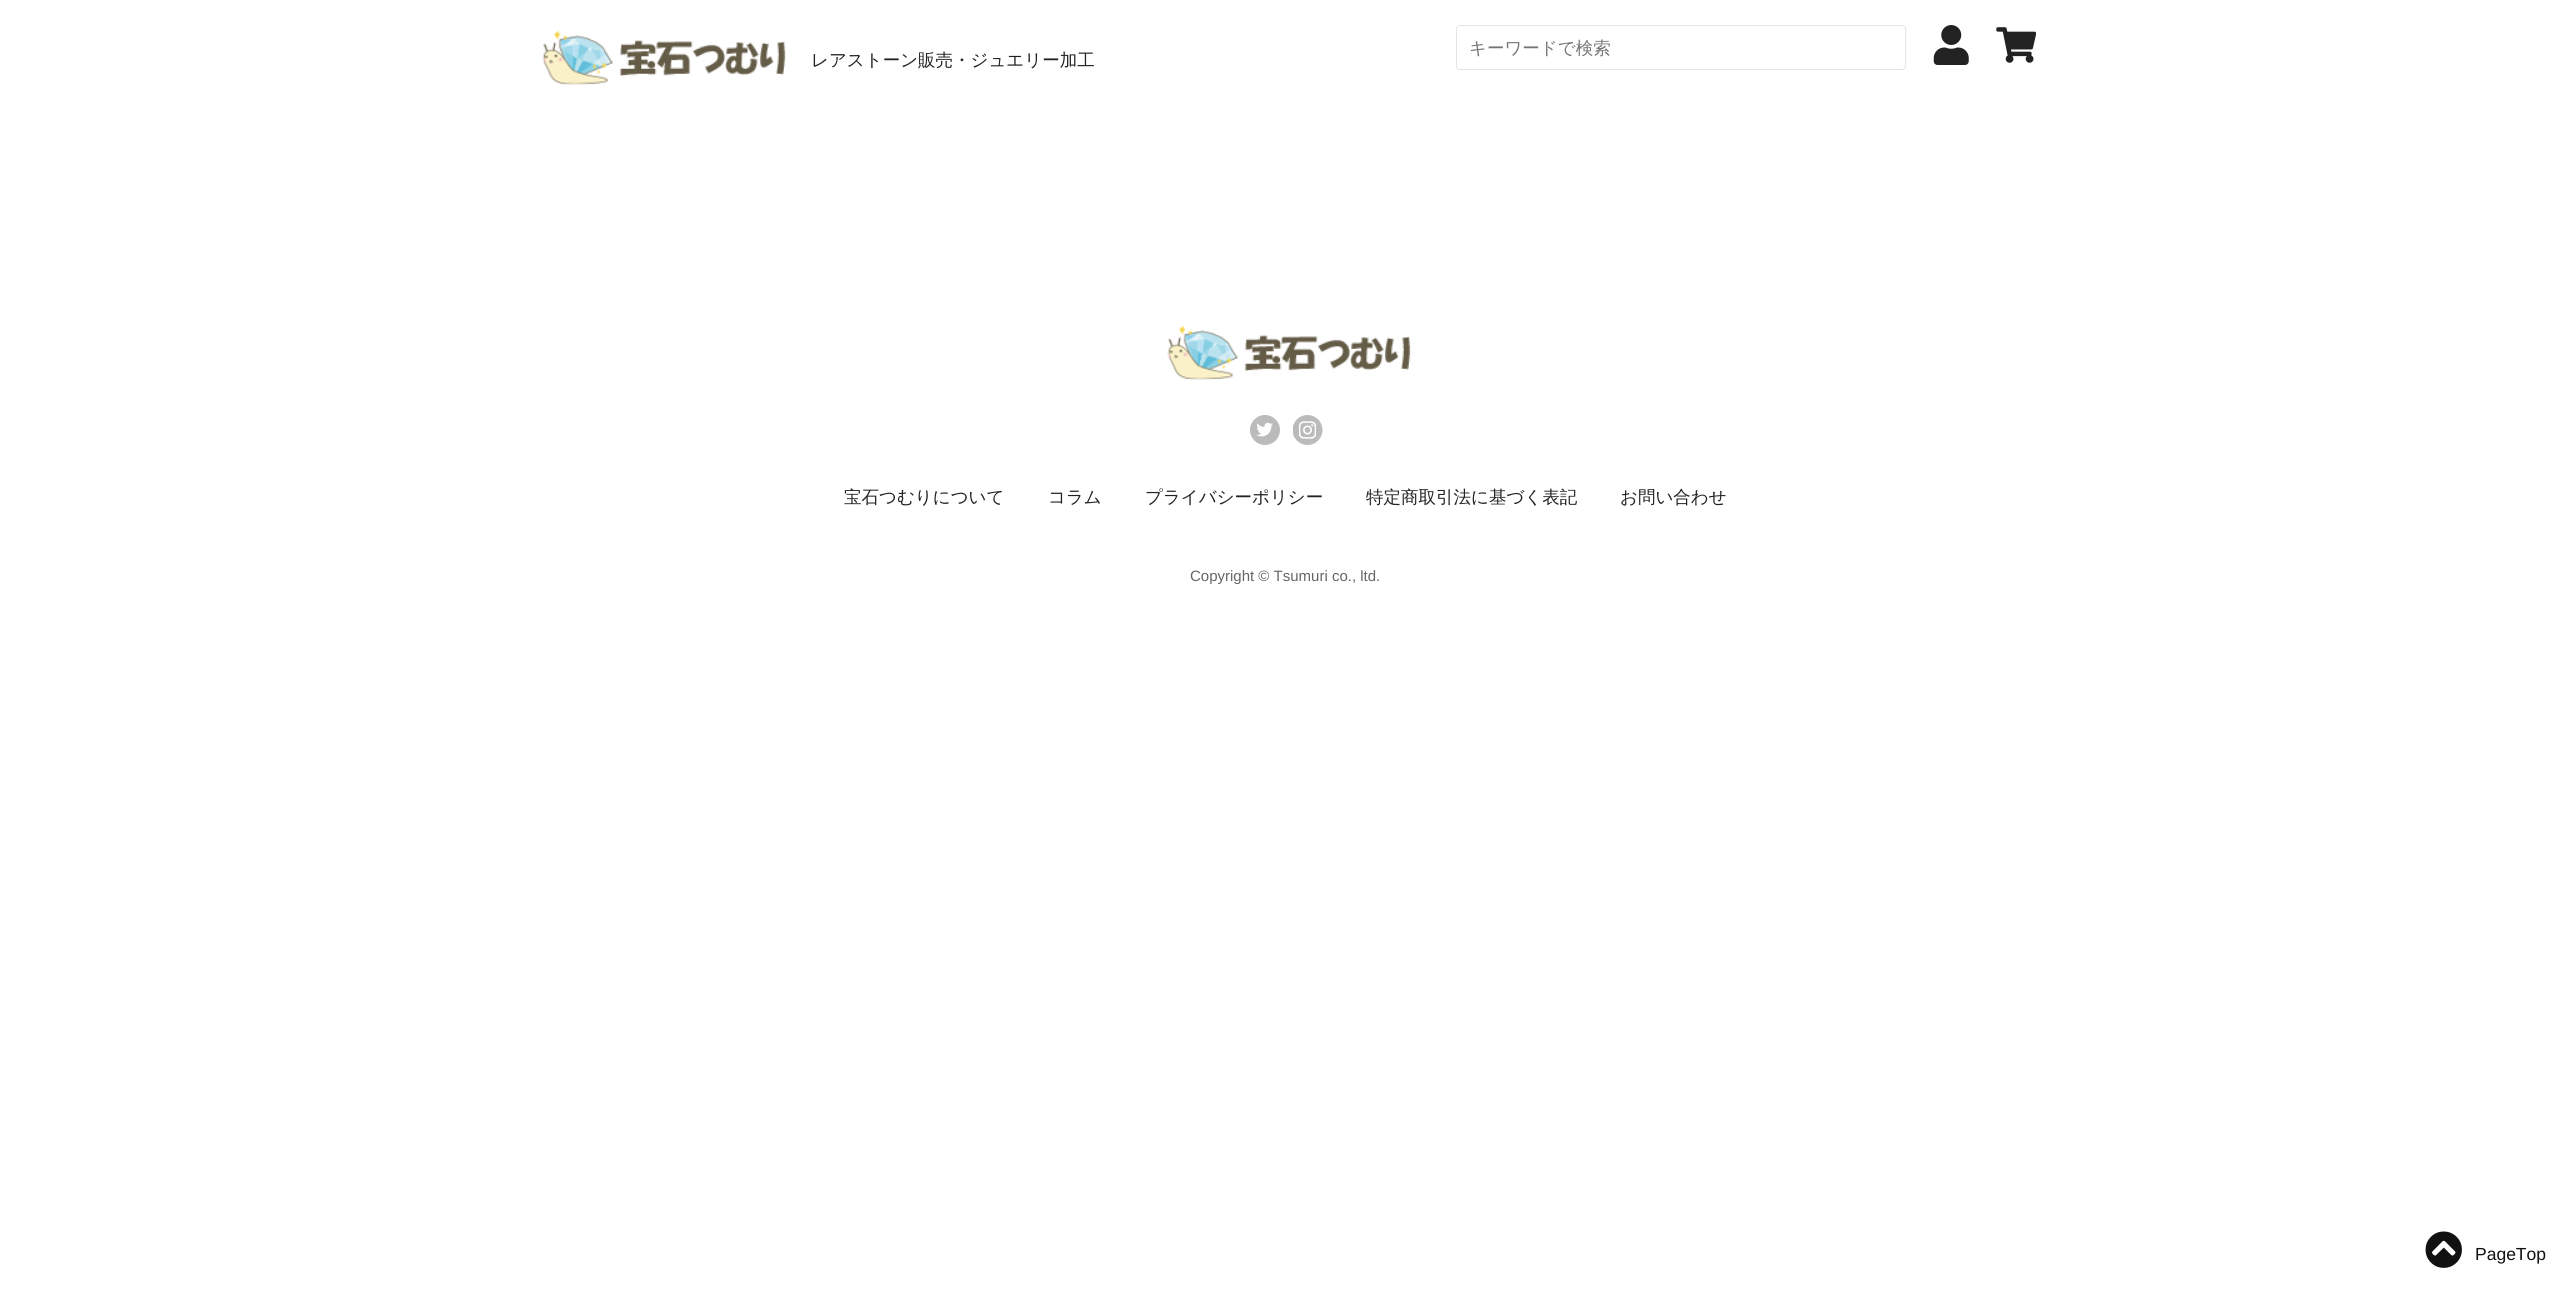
import math
import cairo

surface = cairo.ImageSurface(cairo.FORMAT_RGB24, 2571, 1295)
cr = cairo.Context(surface)
options = cairo.FontOptions()
options.set_hint_metrics(cairo.HINT_METRICS_OFF)
options.set_hint_style(cairo.HINT_STYLE_NONE)
cr.set_font_options(options)
cr.set_miter_limit(4)


def rgb(code):
    cr.set_source_rgb(*(v / 255 for v in bytes.fromhex(code[-6:])))


def rrect(x, y, w, h, r):
    cr.new_sub_path()
    for i, (u, v) in enumerate([(x + w - r, y + h - r), (x + r, y + h - r), (x + r, y + r), (x + w - r, y + r)]):
        cr.arc(u, v, r, i * math.pi / 2, (i + 1) * math.pi / 2)
    cr.close_path()


def image(path, x, y, w, h):
    cr.save()
    cr.set_source_surface(cairo.ImageSurface.create_from_png(path), x, y)
    cr.rectangle(x, y, w, h)
    cr.fill()
    cr.restore()


rgb("#ffffff")
cr.paint()
rrect(1456.5, 25.5, 449, 44, 3.5)
rgb("#e5e5e5")
cr.set_line_width(1)
cr.stroke()
image("img/1.png", 1933, 25, 36, 40)
image("img/2.png", 1996, 27, 40, 36)
image("img/3.png", 542, 30, 244, 55)
image("img/4.png", 1167, 325, 244, 55)
image("img/5.png", 1250, 415, 30, 30)
image("img/6.png", 1293, 415, 30, 30)
image("img/7.png", 2425, 1231, 37, 37)
cr.select_font_face("WenQuanYi Zen Hei Medium")
cr.set_font_size(17.5)
rgb("#757575")
cr.move_to(1469, 54)
cr.show_text("キーワードで検索")
rgb("#222222")
for x, y, s in [
    (811, 66, "レアストーン販売・ジュエリー加工"),
    (844, 503, "宝石つむりについて"),
    (1048, 503, "コラム"),
    (1145, 503, "プライバシーポリシー"),
    (1366, 503, "特定商取引法に基づく表記"),
    (1620, 503, "お問い合わせ"),
]:
    cr.move_to(x, y)
    cr.show_text(s)
cr.select_font_face("Liberation Sans")
cr.set_font_size(15)
rgb("#666666")
cr.move_to(1190, 581)
cr.show_text("Copyright © Tsumuri co., ltd.")
cr.set_font_size(17.5)
rgb("#111111")
cr.move_to(2475, 1260)
cr.show_text("PageTop")
surface.write_to_png("page.png")
